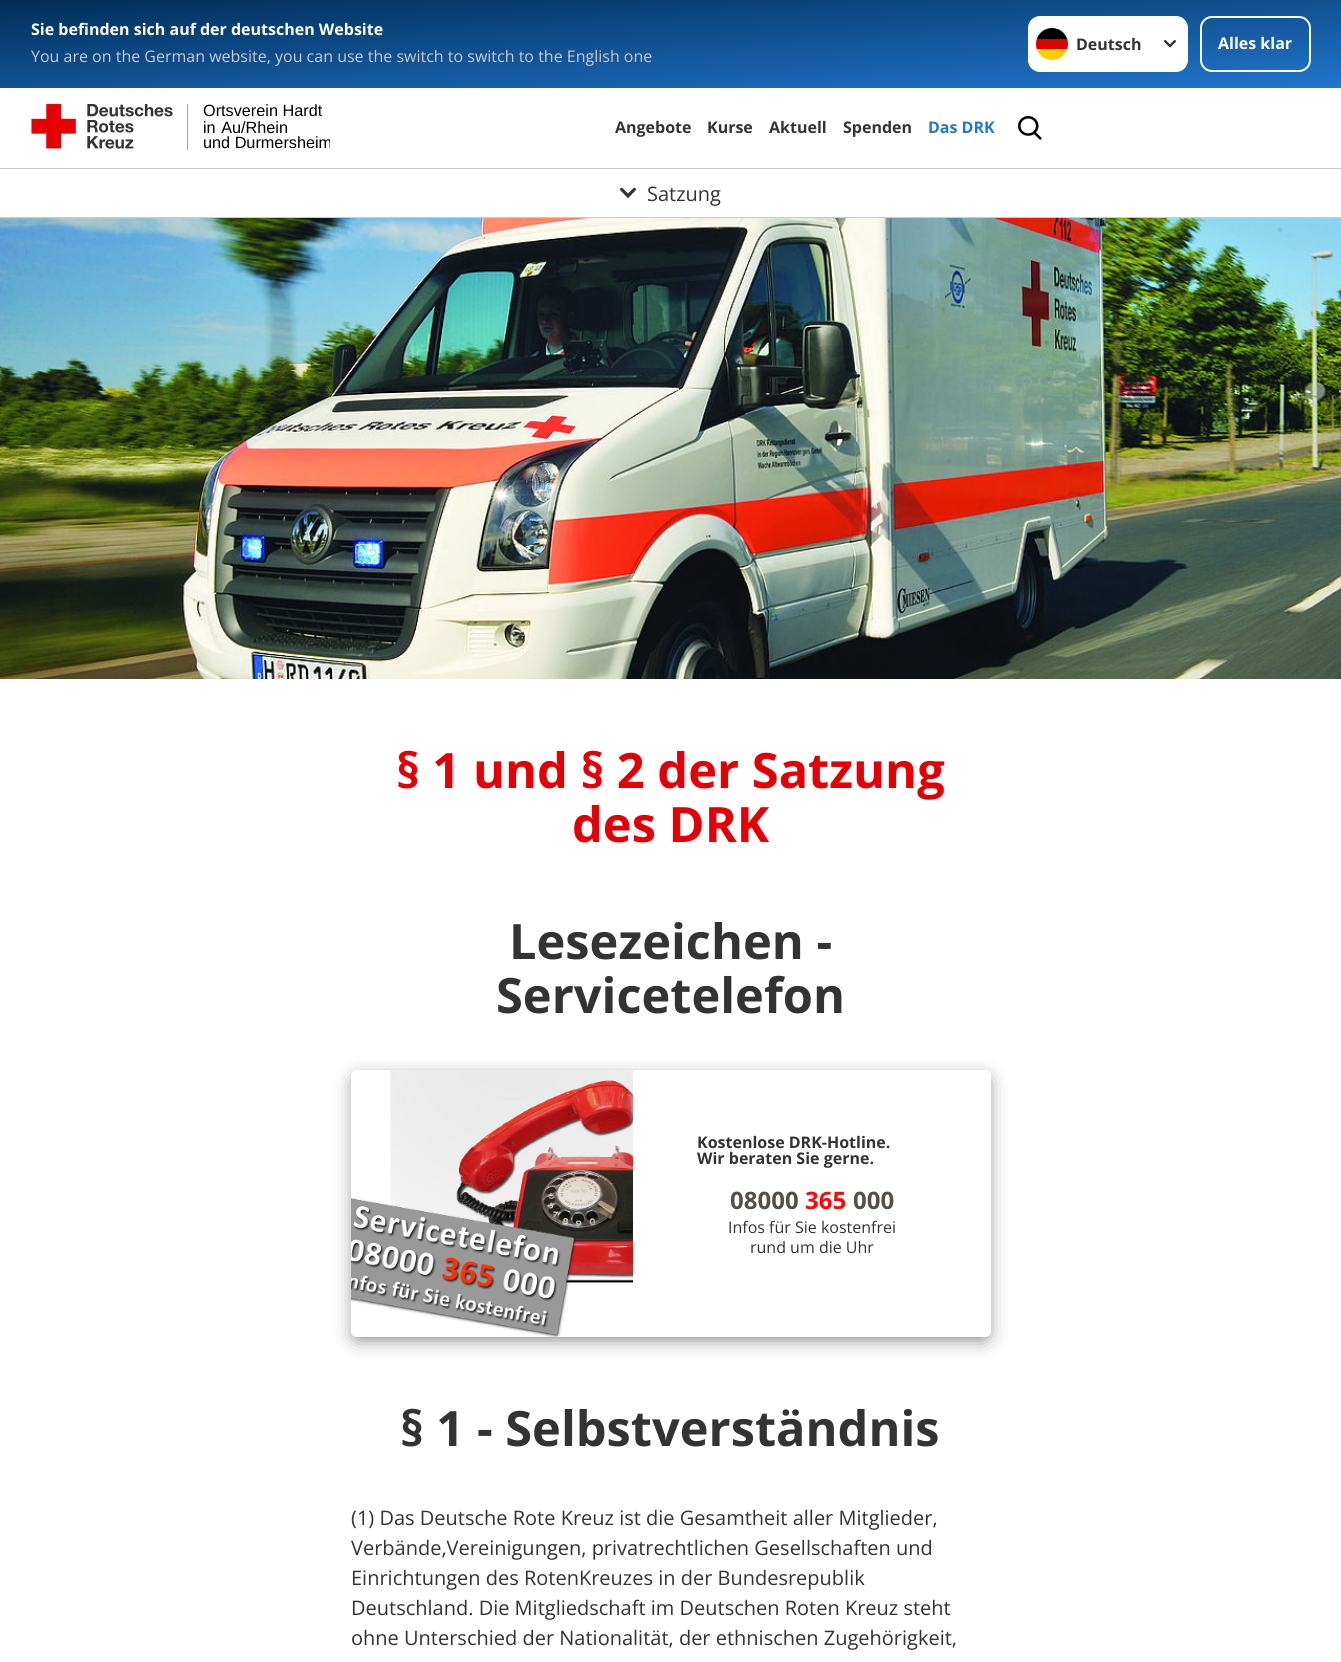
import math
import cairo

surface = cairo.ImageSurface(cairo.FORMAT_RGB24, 1341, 1662)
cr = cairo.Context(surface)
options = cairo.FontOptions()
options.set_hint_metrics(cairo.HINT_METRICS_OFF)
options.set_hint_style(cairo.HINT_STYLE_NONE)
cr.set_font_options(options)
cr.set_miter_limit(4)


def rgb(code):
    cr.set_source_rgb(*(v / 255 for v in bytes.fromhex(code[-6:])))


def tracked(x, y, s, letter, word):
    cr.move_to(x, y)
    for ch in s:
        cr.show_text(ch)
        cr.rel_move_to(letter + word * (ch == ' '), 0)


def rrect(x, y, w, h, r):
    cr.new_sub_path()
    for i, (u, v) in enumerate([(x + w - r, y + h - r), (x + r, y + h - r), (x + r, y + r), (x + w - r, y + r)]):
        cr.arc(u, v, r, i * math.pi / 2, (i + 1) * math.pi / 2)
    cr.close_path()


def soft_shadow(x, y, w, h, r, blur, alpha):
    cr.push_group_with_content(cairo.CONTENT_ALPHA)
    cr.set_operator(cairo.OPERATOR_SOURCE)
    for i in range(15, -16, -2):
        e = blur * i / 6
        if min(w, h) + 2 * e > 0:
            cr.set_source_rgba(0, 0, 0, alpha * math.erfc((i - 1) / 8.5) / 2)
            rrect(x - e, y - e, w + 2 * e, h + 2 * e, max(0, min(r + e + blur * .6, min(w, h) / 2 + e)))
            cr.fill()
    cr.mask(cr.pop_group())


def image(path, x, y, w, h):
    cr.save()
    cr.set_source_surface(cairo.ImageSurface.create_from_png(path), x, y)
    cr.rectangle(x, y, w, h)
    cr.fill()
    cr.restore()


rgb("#ffffff")
cr.paint()
gradient = cairo.LinearGradient(665, -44, 676, 132)
gradient.add_color_stop_rgba(0, 0, 0.176, 0.333, 1)
gradient.add_color_stop_rgba(1, 0.133, 0.463, 0.816, 1)
cr.set_source(gradient)
cr.rectangle(0, 0, 1341, 88)
cr.fill()
rgb("#ffffff")
rrect(1028, 16, 160, 56, 12)
cr.fill()
cr.save()
rrect(1036, 28, 32, 32, 16)
cr.clip()
for x, y, w, h, color in [
    (1036, 49, 32, 11, "#ffce00"),
    (1036, 28, 32, 11, "#000000"),
    (1036, 39, 32, 10, "#dd0000"),
]:
    rgb(color)
    cr.rectangle(x, y, w, h)
    cr.fill()
cr.restore()
image("img/1.png", 1164, 40, 12, 8)
rrect(1201, 17, 109, 54, 11)
cr.stroke()
rgb("#cbcbcb")
cr.rectangle(0, 168, 1341, 1)
cr.fill()
image("img/2.png", 31, 104, 157, 46)
image("img/3.png", 1018, 116, 24, 24)
cr.rectangle(0, 217, 1341, 1)
cr.fill()
image("img/4.png", 620, 188, 16, 11)
image("img/5.png", 0, 218, 1341, 461)
rgb("#666666")
soft_shadow(356, 1080, 630, 257, 1, 10, 1)
rgb("#ffffff")
rrect(351, 1070, 640, 267, 6)
cr.fill()
image("img/6.png", 351, 1070, 282, 267)
cr.select_font_face("Open Sans", cairo.FONT_SLANT_NORMAL, cairo.FONT_WEIGHT_BOLD)
cr.set_font_size(16)
cr.move_to(31, 35)
cr.show_text("Sie befinden sich auf der deutschen Website")
cr.select_font_face("Open Sans")
rgb("#cbcbcb")
cr.move_to(31, 62)
cr.show_text("You are on the German website, you can use the switch to switch to the English one")
cr.select_font_face("Open Sans", cairo.FONT_SLANT_NORMAL, cairo.FONT_WEIGHT_BOLD)
rgb("#333333")
cr.move_to(1076, 50)
cr.show_text("Deutsch")
rgb("#ffffff")
cr.move_to(1218, 49)
cr.show_text("Alles klar")
cr.select_font_face("Liberation Sans")
cr.set_font_size(16.25)
rgb("#000000")
cr.move_to(203, 116)
cr.show_text("Ortsverein Hardt")
tracked(203, 133, "in Au/Rhein", 0, 1)
cr.save()
cr.rectangle(31, 104, 299, 48)
cr.clip()
cr.move_to(203, 148)
cr.show_text("und Durmersheim")
cr.restore()
cr.select_font_face("Open Sans", cairo.FONT_SLANT_NORMAL, cairo.FONT_WEIGHT_BOLD)
cr.set_font_size(16)
rgb("#333333")
for x, y, s in [
    (615, 133, "Angebote"),
    (707, 133, "Kurse"),
    (769, 133, "Aktuell"),
    (843, 133, "Spenden"),
]:
    cr.move_to(x, y)
    cr.show_text(s)
rgb("#2276d0")
cr.move_to(928, 133)
cr.show_text("Das DRK")
cr.select_font_face("Open Sans")
cr.set_font_size(20)
rgb("#333333")
cr.move_to(647, 201)
cr.show_text("Satzung")
cr.select_font_face("Open Sans", cairo.FONT_SLANT_NORMAL, cairo.FONT_WEIGHT_BOLD)
cr.set_font_size(48.75)
rgb("#e60005")
cr.move_to(396, 788)
cr.show_text("§ 1 und § 2 der Satzung")
cr.move_to(572, 842)
cr.show_text("des DRK")
rgb("#333333")
cr.move_to(509, 959)
cr.show_text("Lesezeichen -")
cr.move_to(496, 1013)
cr.show_text("Servicetelefon")
cr.set_font_size(16)
cr.move_to(697, 1148)
cr.show_text("Kostenlose DRK-Hotline.")
cr.move_to(697, 1164)
cr.show_text("Wir beraten Sie gerne.")
cr.set_font_size(24)
rgb("#554f4a")
cr.move_to(730, 1209)
cr.show_text("08000")
rgb("#ff060a")
cr.move_to(805, 1209)
cr.show_text("365")
rgb("#554f4a")
cr.move_to(853, 1209)
cr.show_text("000")
cr.select_font_face("Open Sans")
cr.set_font_size(16)
rgb("#333333")
cr.move_to(728, 1233)
cr.show_text("Infos für Sie kostenfrei")
cr.move_to(750, 1253)
cr.show_text("rund um die Uhr")
cr.select_font_face("Open Sans", cairo.FONT_SLANT_NORMAL, cairo.FONT_WEIGHT_BOLD)
cr.set_font_size(48.75)
cr.move_to(400, 1446)
cr.show_text("§ 1 - Selbstverständnis")
cr.select_font_face("Open Sans")
cr.set_font_size(20)
for x, y, s in [
    (351, 1525, "(1) Das Deutsche Rote Kreuz ist die Gesamtheit aller Mitglieder,"),
    (351, 1555, "Verbände,Vereinigungen, privatrechtlichen Gesellschaften und"),
    (351, 1585, "Einrichtungen des RotenKreuzes in der Bundesrepublik"),
    (351, 1615, "Deutschland. Die Mitgliedschaft im Deutschen Roten Kreuz steht"),
    (351, 1645, "ohne Unterschied der Nationalität, der ethnischen Zugehörigkeit,"),
]:
    cr.move_to(x, y)
    cr.show_text(s)
surface.write_to_png("page.png")
